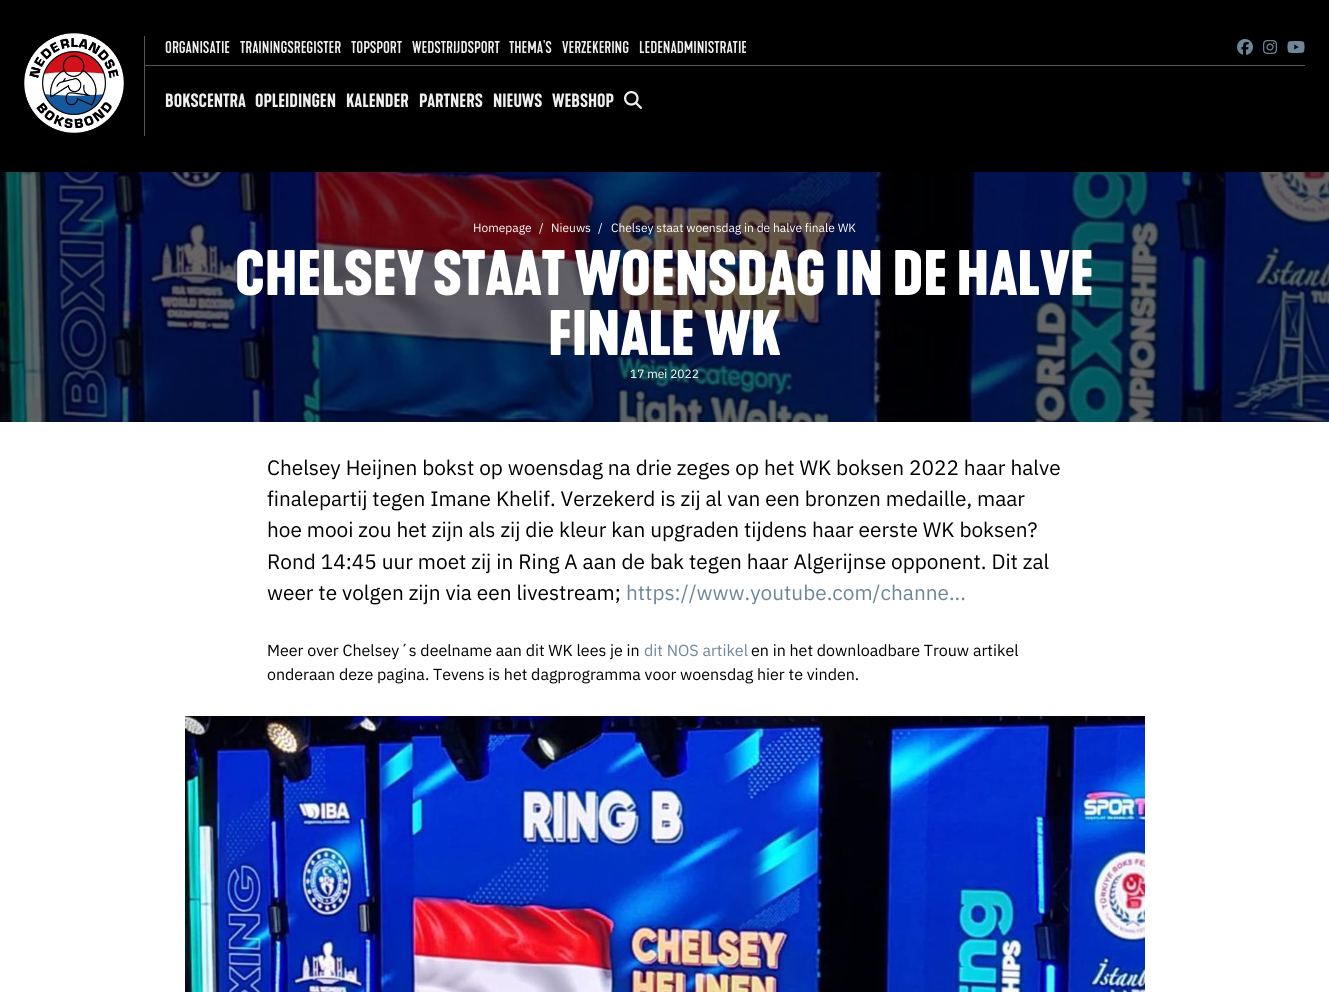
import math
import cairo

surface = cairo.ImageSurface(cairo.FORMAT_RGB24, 1329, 992)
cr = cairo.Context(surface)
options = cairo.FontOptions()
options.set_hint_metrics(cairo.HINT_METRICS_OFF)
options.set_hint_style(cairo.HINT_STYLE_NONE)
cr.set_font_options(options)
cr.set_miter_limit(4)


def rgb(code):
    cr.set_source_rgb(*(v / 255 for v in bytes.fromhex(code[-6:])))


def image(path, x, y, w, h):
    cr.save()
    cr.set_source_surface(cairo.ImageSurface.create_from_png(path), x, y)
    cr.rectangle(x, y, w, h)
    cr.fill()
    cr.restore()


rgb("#ffffff")
cr.paint()
rgb("#000000")
cr.rectangle(0, 0, 1329, 172)
cr.fill()
rgb("#555555")
cr.rectangle(144, 36, 1, 100)
cr.fill()
image("img/1.png", 24, 33, 100, 100)
cr.rectangle(145, 65, 1160, 1)
cr.fill()
image("img/2.png", 1237, 39, 16, 16)
image("img/3.png", 1263, 40, 14, 14)
image("img/4.png", 1287, 41, 18, 12)
image("img/5.png", 624, 91, 18, 18)
image("img/6.png", 0, 172, 1329, 250)
image("img/7.png", 185, 716, 960, 276)
cr.select_font_face("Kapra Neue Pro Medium")
cr.set_font_size(16)
rgb("#eeeeee")
for x, y, s in [
    (165, 53, "ORGANISATIE"),
    (240, 53, "TRAININGSREGISTER"),
    (351, 53, "TOPSPORT"),
    (412, 53, "WEDSTRIJDSPORT"),
    (509, 53, "THEMA'S"),
    (562, 53, "VERZEKERING"),
    (639, 53, "LEDENADMINISTRATIE"),
]:
    cr.move_to(x, y)
    cr.show_text(s)
cr.select_font_face("Kapra Neue Pro SemiBold")
cr.set_font_size(18)
for x, y, s in [
    (165, 107, "BOKSCENTRA"),
    (255, 107, "OPLEIDINGEN"),
    (346, 107, "KALENDER"),
    (419, 107, "PARTNERS"),
    (493, 107, "NIEUWS"),
    (552, 107, "WEBSHOP"),
]:
    cr.move_to(x, y)
    cr.show_text(s)
cr.select_font_face("IBM Plex Sans")
cr.set_font_size(12)
rgb("#ffffff")
for x, y, s in [
    (473, 232, "Homepage"),
    (539, 232, "/"),
    (551, 232, "Nieuws"),
    (598, 232, "/"),
    (611, 232, "Chelsey staat woensdag in de halve finale WK"),
]:
    cr.move_to(x, y)
    cr.show_text(s)
cr.select_font_face("Kapra Neue Pro", cairo.FONT_SLANT_NORMAL, cairo.FONT_WEIGHT_BOLD)
cr.set_font_size(60)
cr.move_to(235, 295)
cr.show_text("CHELSEY STAAT WOENSDAG IN DE HALVE")
cr.move_to(548, 355)
cr.show_text("FINALE WK")
cr.select_font_face("IBM Plex Sans")
cr.set_font_size(12)
cr.move_to(630, 378)
cr.show_text("17 mei 2022")
cr.set_font_size(20.8)
rgb("#000000")
for x, y, s in [
    (267, 475, "Chelsey Heijnen bokst op woensdag na drie zeges op het WK boksen 2022 haar halve"),
    (267, 506, "finalepartij tegen Imane Khelif. Verzekerd is zij al van een bronzen medaille, maar"),
    (267, 537, "hoe mooi zou het zijn als zij die kleur kan upgraden tijdens haar eerste WK boksen?"),
    (267, 569, "Rond 14:45 uur moet zij in Ring A aan de bak tegen haar Algerijnse opponent. Dit zal"),
    (267, 600, "weer te volgen zijn via een livestream;"),
]:
    cr.move_to(x, y)
    cr.show_text(s)
rgb("#6e8699")
cr.move_to(626, 600)
cr.show_text("https://www.youtube.com/channe...")
cr.set_font_size(16)
rgb("#000000")
cr.move_to(267, 656)
cr.show_text("Meer over Chelsey´s deelname aan dit WK lees je in")
rgb("#6e8699")
cr.move_to(644, 656)
cr.show_text("dit NOS artikel")
rgb("#000000")
cr.move_to(751, 656)
cr.show_text("en in het downloadbare Trouw artikel")
cr.move_to(267, 680)
cr.show_text("onderaan deze pagina. Tevens is het dagprogramma voor woensdag hier te vinden.")
surface.write_to_png("page.png")
